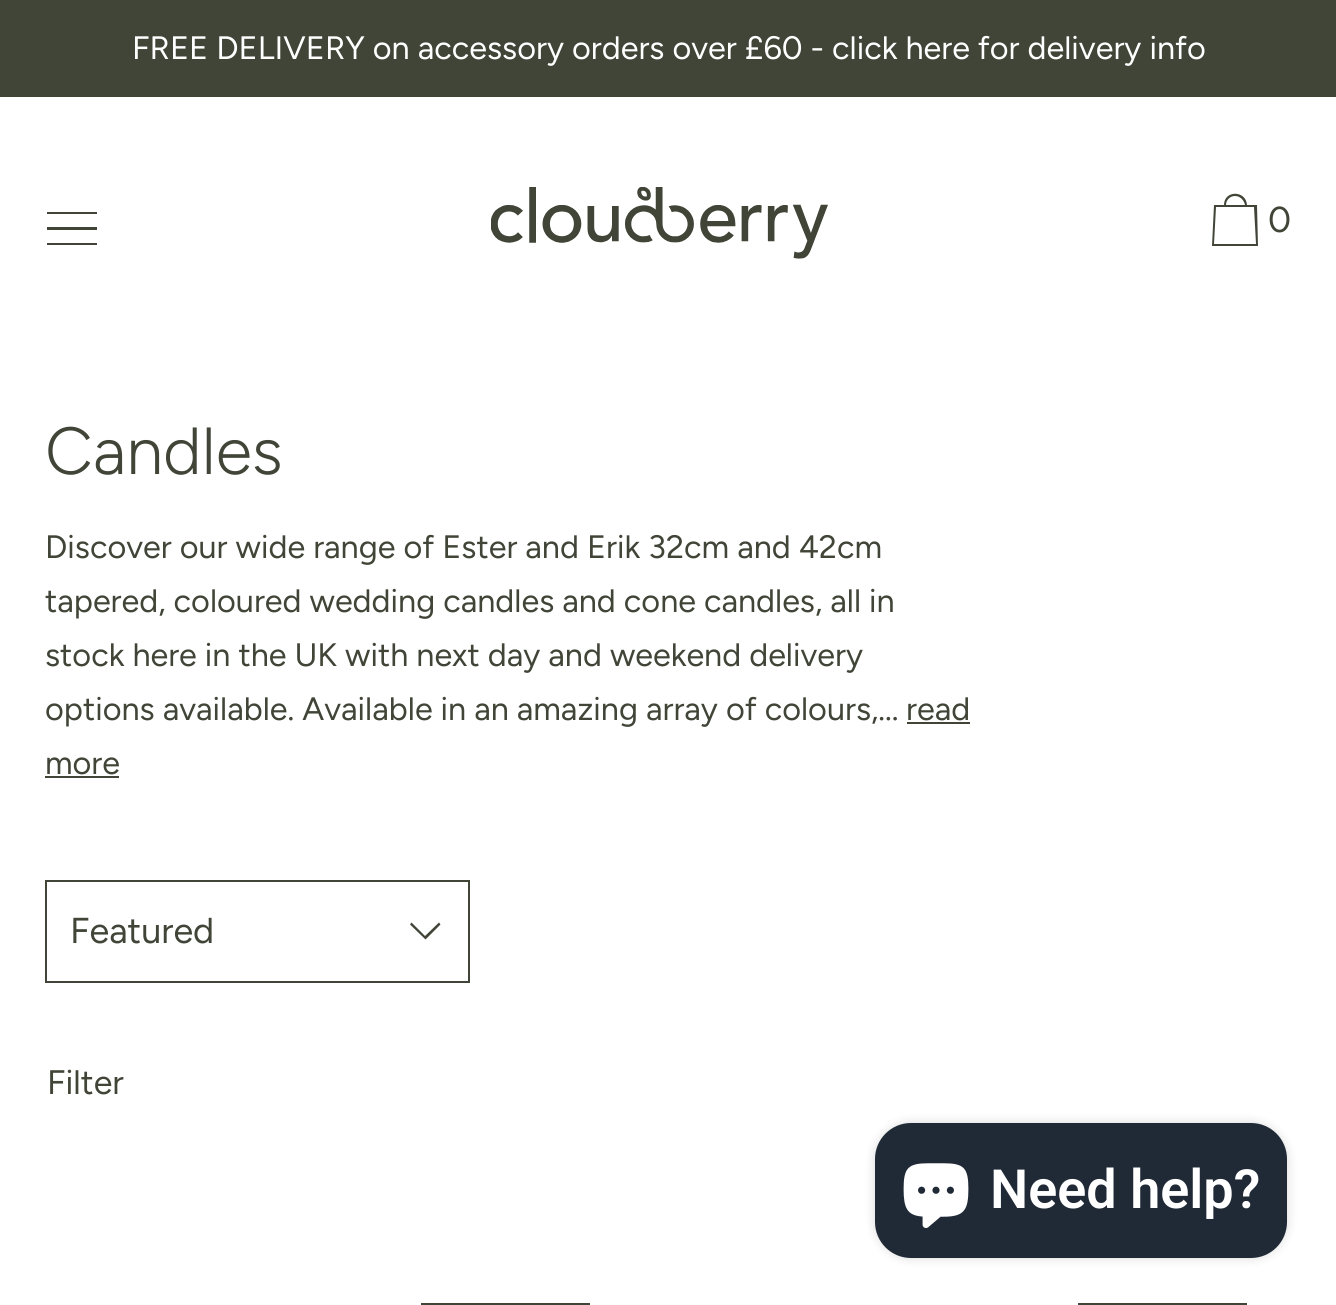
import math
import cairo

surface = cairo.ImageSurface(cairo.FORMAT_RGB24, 1336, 1305)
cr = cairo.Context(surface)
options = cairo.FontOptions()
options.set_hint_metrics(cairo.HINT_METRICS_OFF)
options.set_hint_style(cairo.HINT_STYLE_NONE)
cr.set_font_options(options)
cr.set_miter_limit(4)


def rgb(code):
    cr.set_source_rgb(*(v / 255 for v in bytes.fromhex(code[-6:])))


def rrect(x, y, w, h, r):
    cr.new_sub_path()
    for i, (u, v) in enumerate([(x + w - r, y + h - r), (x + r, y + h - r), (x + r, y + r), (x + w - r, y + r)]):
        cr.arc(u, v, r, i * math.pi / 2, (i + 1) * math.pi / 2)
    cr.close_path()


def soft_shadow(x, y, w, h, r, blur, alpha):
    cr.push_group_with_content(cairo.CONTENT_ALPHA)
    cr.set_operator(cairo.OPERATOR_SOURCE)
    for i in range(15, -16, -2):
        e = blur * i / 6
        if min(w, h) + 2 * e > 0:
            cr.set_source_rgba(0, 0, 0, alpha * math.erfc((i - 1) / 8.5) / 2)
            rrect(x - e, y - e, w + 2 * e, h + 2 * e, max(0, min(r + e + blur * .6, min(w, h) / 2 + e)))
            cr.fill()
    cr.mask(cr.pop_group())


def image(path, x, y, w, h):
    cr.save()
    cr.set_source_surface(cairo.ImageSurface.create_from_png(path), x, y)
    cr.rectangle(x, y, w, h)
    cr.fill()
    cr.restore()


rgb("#ffffff")
cr.paint()
rgb("#404537")
cr.rectangle(0, 0, 1336, 97)
cr.fill()
cr.set_fill_rule(cairo.FILL_RULE_EVEN_ODD)
cr.new_path()
cr.move_to(47, 243)
cr.line_to(97, 243)
cr.line_to(97, 245)
cr.line_to(47, 245)
cr.close_path()
cr.move_to(47, 227)
cr.line_to(97, 227)
cr.line_to(97, 230)
cr.line_to(47, 230)
cr.close_path()
cr.move_to(47, 212)
cr.line_to(97, 212)
cr.line_to(97, 214)
cr.line_to(47, 214)
cr.close_path()
cr.fill()
image("img/1.png", 491, 187, 337, 72)
cr.new_path()
cr.move_to(1218, 244)
cr.line_to(1214, 244)
cr.line_to(1216, 207)
cr.line_to(1254, 207)
cr.line_to(1256, 244)
cr.close_path()
cr.move_to(1235, 196)
cr.curve_to(1240, 196, 1244, 200, 1245, 205)
cr.line_to(1226, 205)
cr.curve_to(1226, 200, 1230, 196, 1235, 196)
cr.close_path()
cr.move_to(1257, 205)
cr.line_to(1247, 205)
cr.curve_to(1246, 190, 1224, 190, 1224, 205)
cr.line_to(1214, 205)
cr.line_to(1212, 246)
cr.line_to(1258, 246)
cr.close_path()
cr.fill()
cr.rectangle(907, 722, 63, 2)
cr.fill()
cr.rectangle(45, 776, 74, 2)
cr.fill()
cr.new_path()
cr.move_to(425, 936)
cr.line_to(439, 922.5)
cr.line_to(440.5, 924.5)
cr.line_to(425.5, 939.5)
cr.line_to(410, 924.5)
cr.line_to(411.5, 922.5)
cr.close_path()
cr.fill()
cr.rectangle(46, 881, 423, 101)
cr.stroke()
cr.rectangle(421, 1303, 169, 2)
cr.fill()
cr.rectangle(1078, 1303, 169, 2)
cr.fill()
rgb("#000000")
soft_shadow(875, 1123, 412, 135, 36, 5.5, 0.15)
rgb("#202a36")
rrect(875, 1123, 412, 135, 36)
cr.fill()
image("img/2.png", 903, 1163, 66, 65)
cr.select_font_face("Figtree")
cr.set_font_size(32.4)
rgb("#ffffff")
cr.move_to(132, 59)
cr.show_text("FREE DELIVERY on accessory orders over £60 - click here for delivery info")
cr.set_font_size(36)
rgb("#404537")
cr.move_to(1268, 232)
cr.show_text("0")
cr.select_font_face("Figtree Light")
cr.set_font_size(66.5)
cr.move_to(45, 474)
cr.show_text("Candles")
cr.select_font_face("Figtree")
cr.set_font_size(32.4)
for x, y, s in [
    (45, 558, "Discover our wide range of Ester and Erik 32cm and 42cm"),
    (45, 612, "tapered, coloured wedding candles and cone candles, all in"),
    (45, 666, "stock here in the UK with next day and weekend delivery"),
    (45, 720, "options available. Available in an amazing array of colours,..."),
    (906, 720, "read"),
    (45, 774, "more"),
]:
    cr.move_to(x, y)
    cr.show_text(s)
cr.set_font_size(36)
cr.move_to(70, 943)
cr.show_text("Featured")
cr.set_font_size(34)
cr.move_to(47, 1094)
cr.show_text("Filter")
cr.select_font_face("Roboto SemiBold")
cr.set_font_size(54)
rgb("#ffffff")
cr.move_to(990, 1208)
cr.show_text("Need help?")
surface.write_to_png("page.png")
